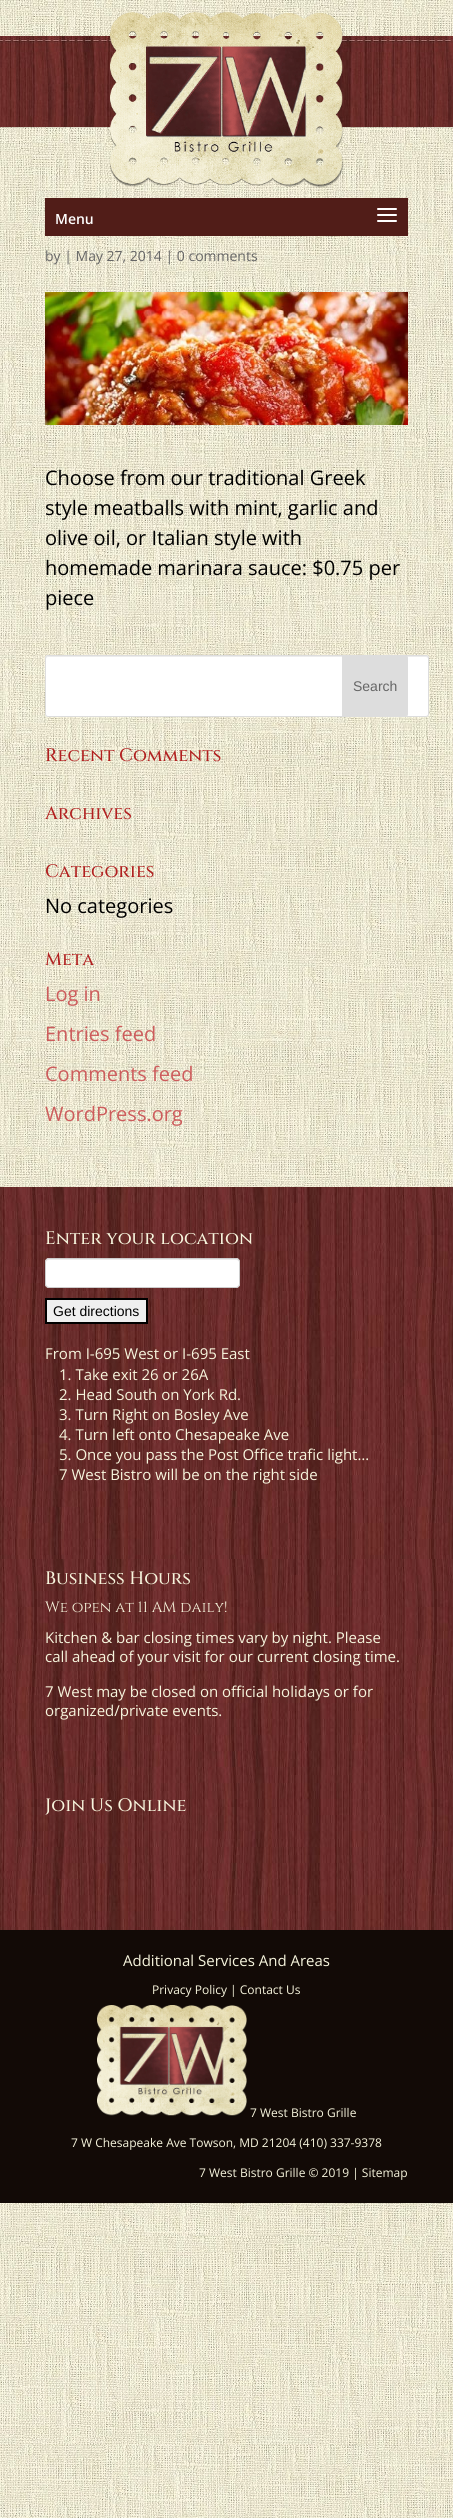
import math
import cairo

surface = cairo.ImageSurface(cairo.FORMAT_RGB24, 453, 2518)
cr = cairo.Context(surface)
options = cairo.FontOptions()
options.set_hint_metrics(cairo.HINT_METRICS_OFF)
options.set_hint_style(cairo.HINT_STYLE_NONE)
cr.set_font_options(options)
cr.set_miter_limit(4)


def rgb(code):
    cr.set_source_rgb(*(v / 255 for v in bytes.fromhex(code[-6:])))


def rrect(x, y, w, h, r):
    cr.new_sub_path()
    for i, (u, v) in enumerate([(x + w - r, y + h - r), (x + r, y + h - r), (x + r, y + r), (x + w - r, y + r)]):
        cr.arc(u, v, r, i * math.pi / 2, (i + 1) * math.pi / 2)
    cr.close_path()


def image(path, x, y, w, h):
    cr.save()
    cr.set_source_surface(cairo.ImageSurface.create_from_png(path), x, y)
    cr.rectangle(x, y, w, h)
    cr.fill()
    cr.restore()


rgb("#ffffff")
cr.paint()
image("img/1.png", 0, 0, 453, 2518)
cr.set_source_rgba(0, 0, 0, 0.1)
cr.rectangle(0, 127, 453, 1)
cr.fill()
image("img/2.png", 0, 36, 453, 91)
image("img/5.png", 0, 143, 453, 1044)
image("img/3.png", 110, 12, 233, 176)
rgb("#511d18")
cr.rectangle(45, 198, 363, 38)
cr.fill()
image("img/4.png", 377, 208, 20, 14)
image("img/6.png", 45, 292, 363, 133)
rgb("#ffffff")
rrect(45, 655, 384, 62, 3)
cr.fill()
rgb("#ececec")
cr.new_path()
cr.move_to(48, 657)
cr.line_to(426, 657)
cr.curve_to(427, 657, 428, 658, 428, 659)
cr.curve_to(428, 658, 428, 656, 426, 656)
cr.line_to(48, 656)
cr.line_to(46, 657)
cr.line_to(46, 659)
cr.curve_to(46, 658, 47, 657, 48, 657)
cr.close_path()
cr.fill()
rrect(45.5, 655.5, 383, 61, 2.5)
rgb("#dddddd")
cr.set_line_width(1)
cr.stroke()
cr.new_path()
cr.move_to(342.5, 655.5)
cr.line_to(405, 655.5)
cr.curve_to(406.5, 655.5, 407.5, 656.5, 407.5, 658)
cr.line_to(407.5, 714)
cr.curve_to(407.5, 715.5, 406.5, 716.5, 405, 716.5)
cr.line_to(342.5, 716.5)
cr.close_path()
cr.fill_preserve()
cr.stroke()
image("img/7.png", 0, 1187, 453, 743)
rgb("#ffffff")
rrect(45, 1258, 195, 30, 4)
cr.fill()
rgb("#ececec")
cr.new_path()
cr.move_to(49, 1260)
cr.line_to(236, 1260)
cr.curve_to(238, 1260, 239, 1261, 239, 1263)
cr.curve_to(239, 1261, 238, 1259, 236, 1259)
cr.line_to(49, 1259)
cr.curve_to(47, 1259, 46, 1261, 46, 1263)
cr.curve_to(46, 1261, 47, 1260, 49, 1260)
cr.close_path()
cr.fill()
rrect(45.5, 1258.5, 194, 29, 3.5)
rgb("#cccccc")
cr.stroke()
rgb("#efefef")
cr.rectangle(46, 1299, 101, 24)
cr.fill_preserve()
rgb("#000000")
cr.set_line_width(2)
cr.stroke()
rgb("#120a06")
cr.rectangle(0, 1930, 453, 273)
cr.fill()
image("img/8.png", 97, 2005, 150, 112)
cr.select_font_face("Open Sans SemiBold")
cr.set_font_size(14)
rgb("#ffffff")
cr.move_to(55, 224)
cr.show_text("Menu")
cr.select_font_face("Open Sans")
rgb("#666666")
cr.move_to(45, 261)
cr.show_text("by | May 27, 2014 | 0 comments")
cr.set_font_size(20)
rgb("#000000")
for x, y, s in [
    (45, 485, "Choose from our traditional Greek"),
    (45, 515, "style meatballs with mint, garlic and"),
    (45, 545, "olive oil, or Italian style with"),
    (45, 575, "homemade marinara sauce: $0.75 per"),
    (45, 605, "piece"),
]:
    cr.move_to(x, y)
    cr.show_text(s)
cr.select_font_face("Liberation Sans")
cr.set_font_size(14)
rgb("#666666")
cr.move_to(353, 691)
cr.show_text("Search")
cr.select_font_face("Cinzel Medium")
cr.set_font_size(18)
rgb("#b11f1f")
for x, y, s in [
    (45, 761, "Recent Comments"),
    (45, 819, "Archives"),
    (45, 877, "Categories"),
]:
    cr.move_to(x, y)
    cr.show_text(s)
cr.select_font_face("Open Sans")
cr.set_font_size(20)
rgb("#000000")
cr.move_to(45, 913)
cr.show_text("No categories")
cr.select_font_face("Cinzel Medium")
cr.set_font_size(18)
rgb("#b11f1f")
cr.move_to(45, 965)
cr.show_text("Meta")
cr.select_font_face("Open Sans")
cr.set_font_size(20)
rgb("#cd5c5c")
for x, y, s in [
    (45, 1001, "Log in"),
    (45, 1041, "Entries feed"),
    (45, 1081, "Comments feed"),
    (45, 1121, "WordPress.org"),
]:
    cr.move_to(x, y)
    cr.show_text(s)
cr.select_font_face("Cinzel Medium")
cr.set_font_size(18)
rgb("#f7f5dd")
cr.move_to(45, 1244)
cr.show_text("Enter your location")
cr.select_font_face("Liberation Sans")
cr.set_font_size(14)
rgb("#000000")
cr.move_to(53, 1316)
cr.show_text("Get directions")
cr.select_font_face("Open Sans")
cr.set_font_size(15)
rgb("#f7f5dd")
for x, y, s in [
    (45, 1359, "From I-695 West or I-695 East"),
    (59, 1380, "1. Take exit 26 or 26A"),
    (59, 1400, "2. Head South on York Rd."),
    (59, 1420, "3. Turn Right on Bosley Ave"),
    (59, 1440, "4. Turn left onto Chesapeake Ave"),
    (59, 1460, "5. Once you pass the Post Office trafic light…"),
    (59, 1480, "7 West Bistro will be on the right side"),
]:
    cr.move_to(x, y)
    cr.show_text(s)
cr.select_font_face("Cinzel Medium")
cr.set_font_size(18)
cr.move_to(45, 1584)
cr.show_text("Business Hours")
cr.select_font_face("Cinzel")
cr.set_font_size(15)
cr.move_to(45, 1612)
cr.show_text("We open at 11 AM daily!")
cr.select_font_face("Open Sans")
for x, y, s in [
    (45, 1643, "Kitchen & bar closing times vary by night. Please"),
    (45, 1662, "call ahead of your visit for our current closing time."),
    (45, 1697, "7 West may be closed on official holidays or for"),
    (45, 1716, "organized/private events."),
]:
    cr.move_to(x, y)
    cr.show_text(s)
cr.select_font_face("Cinzel Medium")
cr.set_font_size(18)
cr.move_to(45, 1811)
cr.show_text("Join Us Online")
cr.select_font_face("Open Sans")
cr.set_font_size(15)
cr.move_to(123, 1966)
cr.show_text("Additional Services And Areas")
cr.set_font_size(12)
for x, y, s in [
    (152, 1994, "Privacy Policy | Contact Us"),
    (250, 2117, "7 West Bistro Grille"),
    (71, 2147, "7 W Chesapeake Ave Towson, MD 21204 (410) 337-9378"),
    (199, 2177, "7 West Bistro Grille © 2019 | Sitemap"),
]:
    cr.move_to(x, y)
    cr.show_text(s)
surface.write_to_png("page.png")
